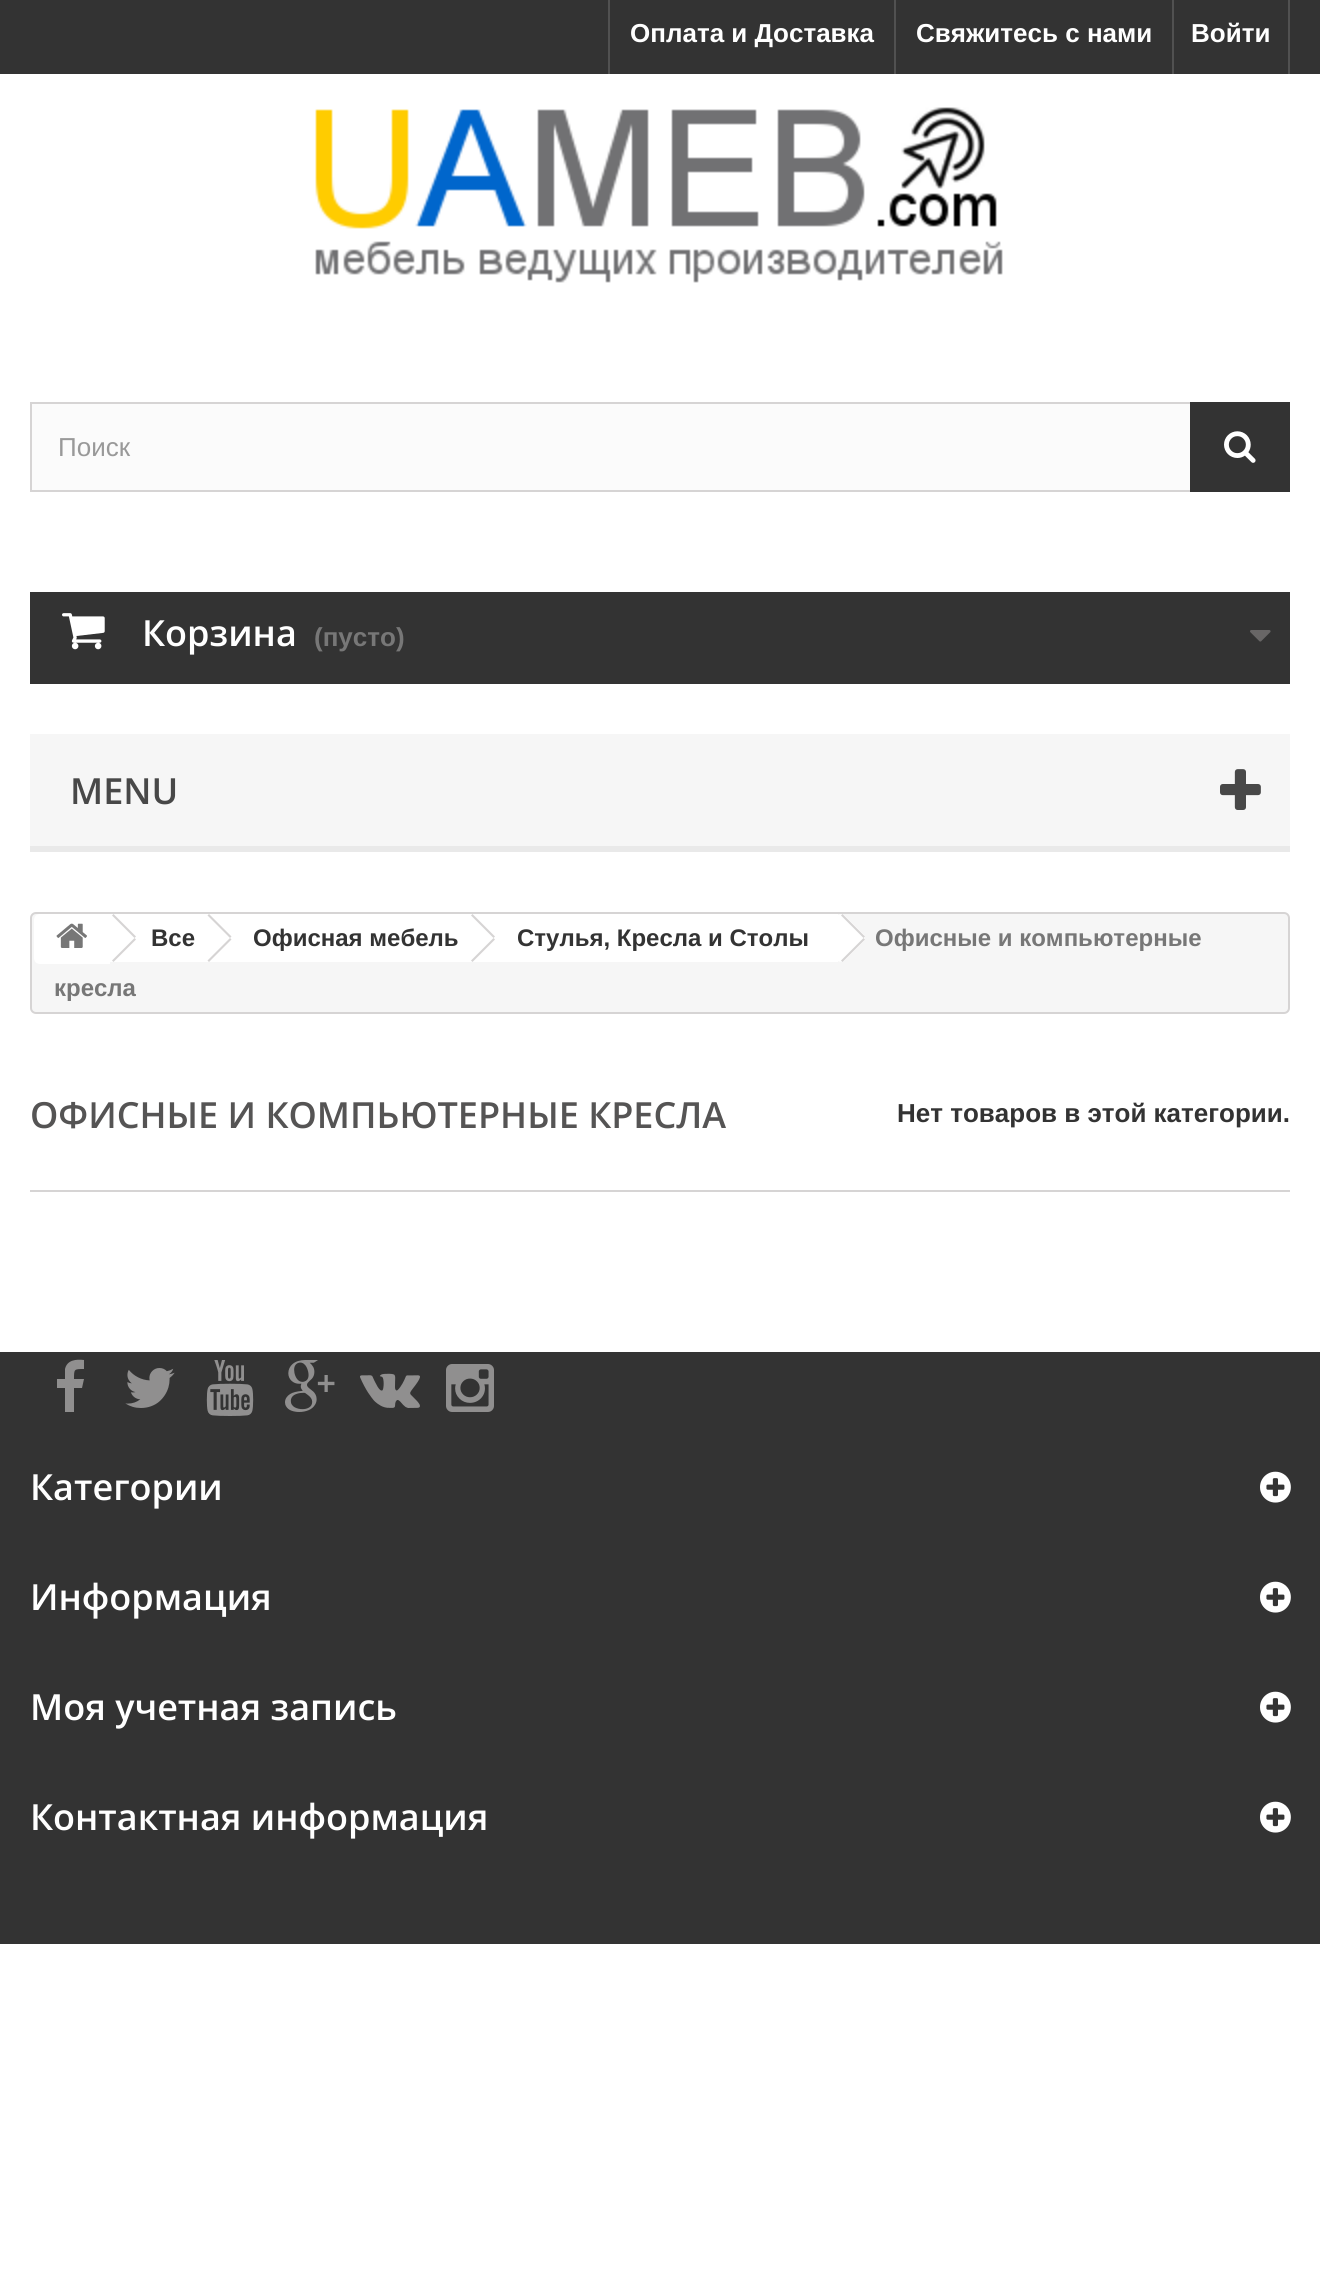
import math
import cairo

surface = cairo.ImageSurface(cairo.FORMAT_RGB24, 1320, 2289)
cr = cairo.Context(surface)
options = cairo.FontOptions()
options.set_hint_metrics(cairo.HINT_METRICS_OFF)
options.set_hint_style(cairo.HINT_STYLE_NONE)
cr.set_font_options(options)
cr.set_miter_limit(4)


def rgb(code):
    cr.set_source_rgb(*(v / 255 for v in bytes.fromhex(code[-6:])))


def rrect(x, y, w, h, r):
    cr.new_sub_path()
    for i, (u, v) in enumerate([(x + w - r, y + h - r), (x + r, y + h - r), (x + r, y + r), (x + w - r, y + r)]):
        cr.arc(u, v, r, i * math.pi / 2, (i + 1) * math.pi / 2)
    cr.close_path()


def image(path, x, y, w, h):
    cr.save()
    cr.set_source_surface(cairo.ImageSurface.create_from_png(path), x, y)
    cr.rectangle(x, y, w, h)
    cr.fill()
    cr.restore()


rgb("#ffffff")
cr.paint()
for x, y, w, h, color in [
    (0, 0, 1320, 74, "#333333"),
    (608, 0, 2, 74, "#515151"),
    (894, 0, 2, 74, "#515151"),
    (1288, 0, 2, 74, "#515151"),
    (1172, 0, 2, 74, "#515151"),
]:
    rgb(color)
    cr.rectangle(x, y, w, h)
    cr.fill()
image("img/1.png", 315, 107, 688, 176)
rgb("#fbfbfb")
cr.rectangle(32, 404, 1158, 86)
cr.fill()
cr.rectangle(31, 403, 1258, 88)
rgb("#d6d4d4")
cr.stroke()
rgb("#333333")
cr.rectangle(1190, 402, 100, 90)
cr.fill()
image("img/2.png", 1224, 431, 32, 32)
cr.rectangle(30, 592, 1260, 92)
cr.fill()
image("img/3.png", 62, 613, 43, 37)
image("img/4.png", 1250, 630, 21, 12)
rgb("#f6f6f6")
cr.rectangle(30, 734, 1260, 112)
cr.fill()
rgb("#e9e9e9")
cr.rectangle(30, 846, 1260, 6)
cr.fill()
image("img/5.png", 1220, 769, 41, 41)
rgb("#f6f6f6")
rrect(31, 913, 1258, 100, 5)
cr.fill_preserve()
rgb("#d6d4d4")
cr.stroke()
rgb("#ffffff")
cr.new_path()
cr.move_to(40, 914)
cr.line_to(110, 914)
cr.line_to(110, 964)
cr.line_to(40, 964)
cr.curve_to(36.5, 964, 34, 961.5, 34, 958)
cr.line_to(34, 920)
cr.curve_to(34, 916.5, 36.5, 914, 40, 914)
cr.close_path()
cr.fill()
image("img/6.png", 56, 923, 31, 25)
cr.rectangle(110, 914, 100, 48)
cr.fill()
rgb("#d6d4d4")
cr.new_path()
cr.move_to(113.5, 914)
cr.line_to(136, 936.5)
cr.line_to(134.5, 938)
cr.line_to(112, 915.5)
cr.close_path()
cr.move_to(134.5, 938)
cr.line_to(136, 939.5)
cr.line_to(113.5, 962)
cr.line_to(112, 960.5)
cr.close_path()
cr.fill()
rgb("#ffffff")
cr.new_path()
cr.move_to(230, 915)
cr.line_to(250, 935)
cr.curve_to(252, 937, 252, 939, 250, 941)
cr.line_to(230, 961)
cr.curve_to(229, 962, 226, 962, 225, 961)
cr.line_to(205, 941)
cr.curve_to(203, 939, 203, 937, 205, 935)
cr.line_to(225, 915)
cr.curve_to(226, 914, 229, 914, 230, 915)
cr.close_path()
cr.fill()
cr.rectangle(210, 914, 262, 48)
cr.fill()
rgb("#d6d4d4")
cr.new_path()
cr.move_to(209, 914)
cr.line_to(231.5, 936.5)
cr.line_to(230, 938)
cr.line_to(207.5, 915.5)
cr.close_path()
cr.move_to(230, 938)
cr.line_to(231.5, 939.5)
cr.line_to(209, 962)
cr.line_to(207.5, 960.5)
cr.close_path()
cr.fill()
rgb("#ffffff")
cr.new_path()
cr.move_to(494, 915)
cr.line_to(514, 935)
cr.curve_to(515, 937, 515, 939, 514, 941)
cr.line_to(494, 961)
cr.curve_to(492, 962, 490, 962, 488, 961)
cr.line_to(468, 941)
cr.curve_to(467, 939, 467, 937, 468, 935)
cr.line_to(488, 915)
cr.curve_to(490, 914, 492, 914, 494, 915)
cr.close_path()
cr.fill()
cr.rectangle(472, 914, 366, 48)
cr.fill()
rgb("#d6d4d4")
cr.new_path()
cr.move_to(472.5, 914)
cr.line_to(495, 936.5)
cr.line_to(493.5, 938)
cr.line_to(471, 915.5)
cr.close_path()
cr.move_to(493.5, 938)
cr.line_to(495, 939.5)
cr.line_to(472.5, 962)
cr.line_to(471, 960.5)
cr.close_path()
cr.fill()
rgb("#ffffff")
cr.new_path()
cr.move_to(844, 915)
cr.line_to(864, 935)
cr.curve_to(865, 937, 865, 939, 864, 941)
cr.line_to(844, 961)
cr.curve_to(842, 962, 840, 962, 838, 961)
cr.line_to(818, 941)
cr.curve_to(817, 939, 817, 937, 818, 935)
cr.line_to(838, 915)
cr.curve_to(840, 914, 842, 914, 844, 915)
cr.close_path()
cr.fill()
rgb("#d6d4d4")
cr.new_path()
cr.move_to(842.5, 914)
cr.line_to(865, 936.5)
cr.line_to(863.5, 938)
cr.line_to(841, 915.5)
cr.close_path()
cr.move_to(863.5, 938)
cr.line_to(865, 939.5)
cr.line_to(842.5, 962)
cr.line_to(841, 960.5)
cr.close_path()
cr.fill()
cr.rectangle(30, 1190, 1260, 2)
cr.fill()
rgb("#333333")
cr.rectangle(0, 1352, 1320, 592)
cr.fill()
rgb("#908f8f")
cr.new_path()
cr.move_to(84, 1360)
cr.line_to(84, 1369)
cr.curve_to(74, 1369, 74, 1369, 74, 1379)
cr.line_to(84, 1379)
cr.line_to(82, 1388)
cr.line_to(74, 1388)
cr.line_to(74, 1412)
cr.line_to(65, 1412)
cr.line_to(65, 1388)
cr.line_to(57, 1388)
cr.line_to(57, 1379)
cr.line_to(65, 1379)
cr.line_to(65, 1369)
cr.curve_to(67, 1360, 76, 1359, 84, 1360)
cr.close_path()
cr.fill()
image("img/7.png", 125, 1368, 50, 40)
image("img/8.png", 206, 1360, 48, 56)
image("img/9.png", 285, 1360, 50, 52)
image("img/10.png", 360, 1373, 60, 35)
image("img/11.png", 446, 1364, 48, 48)
image("img/12.png", 1260, 1471, 31, 32)
image("img/12.png", 1260, 1581, 31, 32)
image("img/12.png", 1260, 1691, 31, 32)
image("img/12.png", 1260, 1801, 31, 32)
cr.select_font_face("Liberation Sans", cairo.FONT_SLANT_NORMAL, cairo.FONT_WEIGHT_BOLD)
cr.set_font_size(26)
rgb("#ffffff")
for x, y, s in [
    (630, 42, "Оплата и Доставка"),
    (916, 42, "Свяжитесь с нами"),
    (1191, 42, "Войти"),
]:
    cr.move_to(x, y)
    cr.show_text(s)
cr.select_font_face("Liberation Sans")
rgb("#999999")
cr.move_to(58, 456)
cr.show_text("Поиск")
cr.select_font_face("Open Sans SemiBold")
cr.set_font_size(36)
rgb("#ffffff")
cr.move_to(142, 646)
cr.show_text("Корзина")
cr.select_font_face("Liberation Sans", cairo.FONT_SLANT_NORMAL, cairo.FONT_WEIGHT_BOLD)
cr.set_font_size(26)
rgb("#777777")
cr.move_to(314, 646)
cr.show_text("(пусто)")
cr.select_font_face("Open Sans SemiBold")
cr.set_font_size(36)
rgb("#484848")
cr.move_to(70, 804)
cr.show_text("MENU")
cr.select_font_face("Liberation Sans", cairo.FONT_SLANT_NORMAL, cairo.FONT_WEIGHT_BOLD)
cr.set_font_size(24)
rgb("#333333")
for x, y, s in [
    (151, 946, "Все"),
    (253, 946, "Офисная мебель"),
    (517, 946, "Стулья, Кресла и Столы"),
]:
    cr.move_to(x, y)
    cr.show_text(s)
rgb("#777777")
cr.move_to(875, 946)
cr.show_text("Офисные и компьютерные")
cr.move_to(54, 996)
cr.show_text("кресла")
cr.select_font_face("Open Sans SemiBold")
cr.set_font_size(36)
rgb("#555454")
cr.move_to(30, 1128)
cr.show_text("ОФИСНЫЕ И КОМПЬЮТЕРНЫЕ КРЕСЛА")
cr.select_font_face("Liberation Sans", cairo.FONT_SLANT_NORMAL, cairo.FONT_WEIGHT_BOLD)
cr.set_font_size(26)
rgb("#333333")
cr.move_to(897, 1122)
cr.show_text("Нет товаров в этой категории.")
cr.select_font_face("Open Sans SemiBold")
cr.set_font_size(36)
rgb("#ffffff")
for x, y, s in [
    (30, 1500, "Категории"),
    (30, 1610, "Информация"),
    (30, 1720, "Моя учетная запись"),
    (30, 1830, "Контактная информация"),
]:
    cr.move_to(x, y)
    cr.show_text(s)
surface.write_to_png("page.png")
